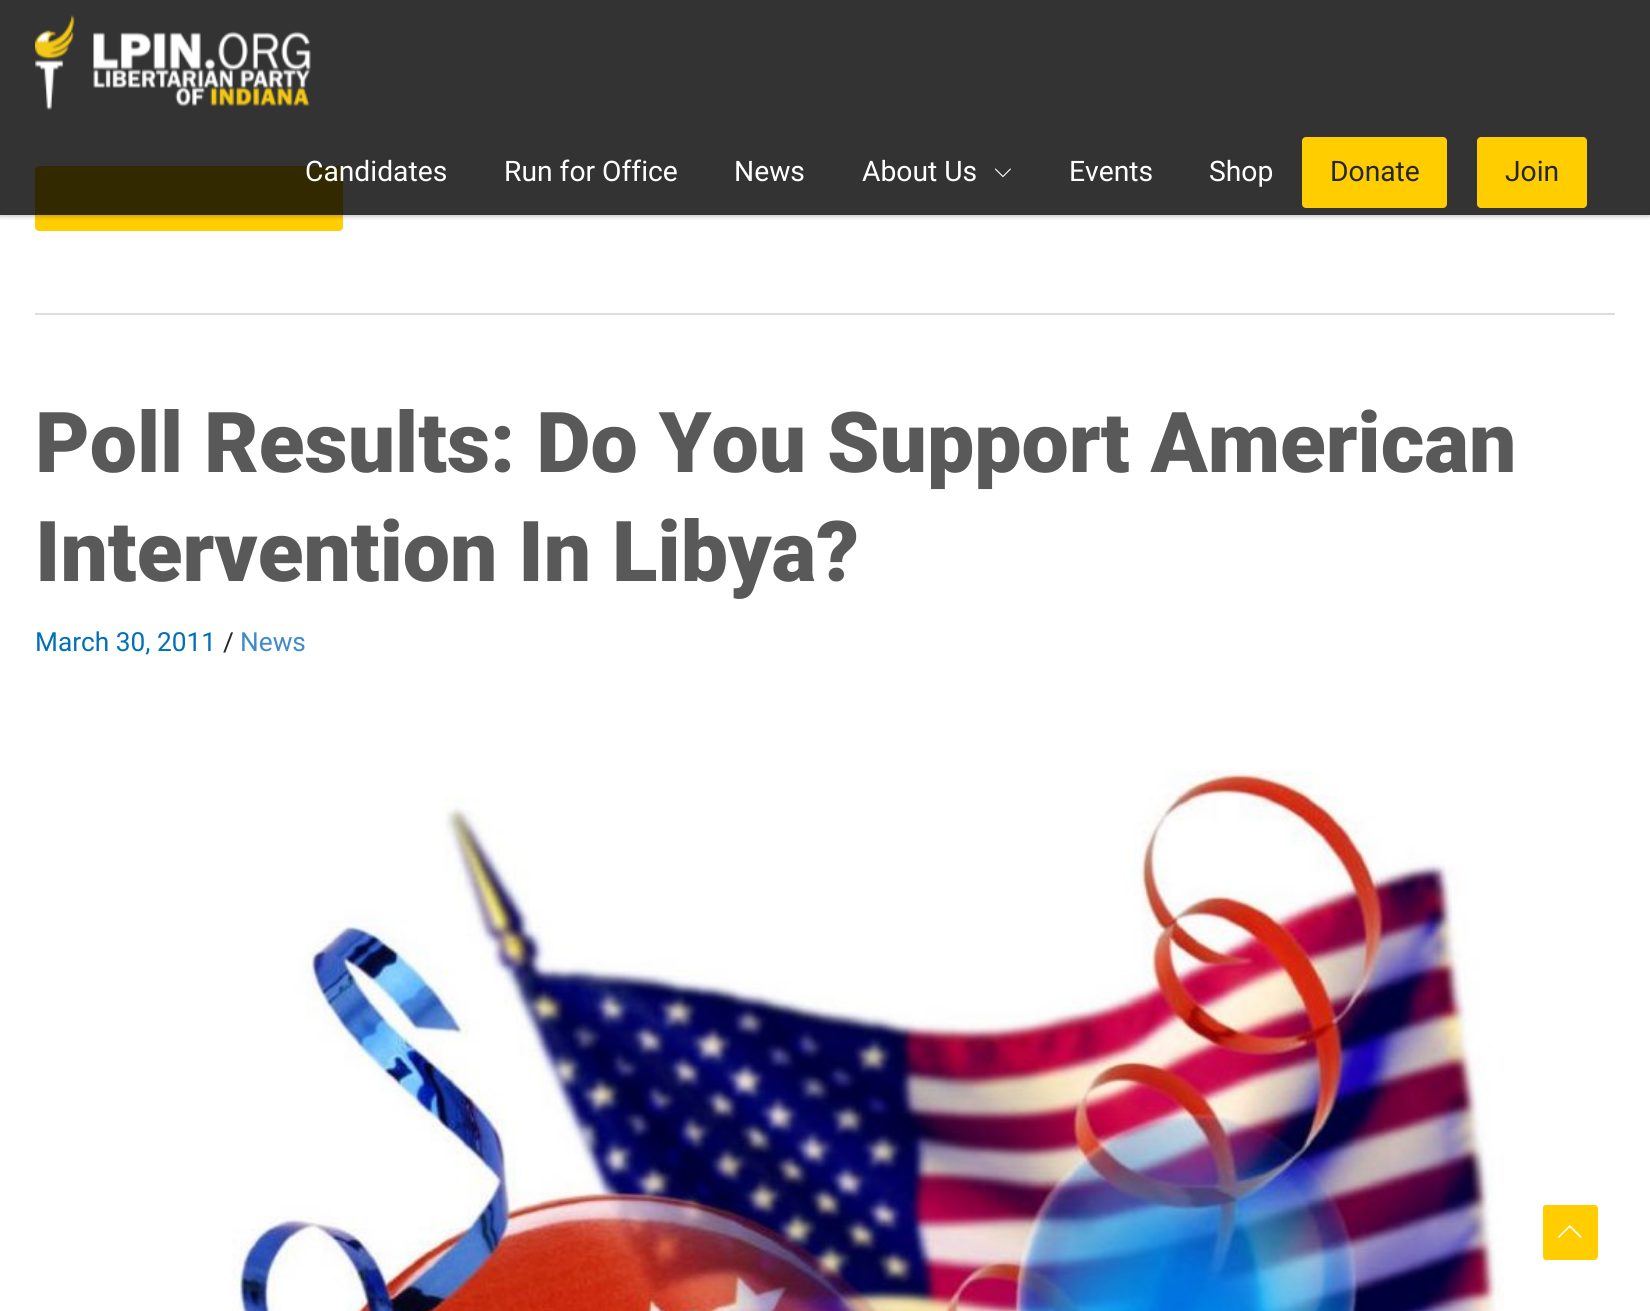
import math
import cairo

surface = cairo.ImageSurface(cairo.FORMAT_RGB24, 1650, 1311)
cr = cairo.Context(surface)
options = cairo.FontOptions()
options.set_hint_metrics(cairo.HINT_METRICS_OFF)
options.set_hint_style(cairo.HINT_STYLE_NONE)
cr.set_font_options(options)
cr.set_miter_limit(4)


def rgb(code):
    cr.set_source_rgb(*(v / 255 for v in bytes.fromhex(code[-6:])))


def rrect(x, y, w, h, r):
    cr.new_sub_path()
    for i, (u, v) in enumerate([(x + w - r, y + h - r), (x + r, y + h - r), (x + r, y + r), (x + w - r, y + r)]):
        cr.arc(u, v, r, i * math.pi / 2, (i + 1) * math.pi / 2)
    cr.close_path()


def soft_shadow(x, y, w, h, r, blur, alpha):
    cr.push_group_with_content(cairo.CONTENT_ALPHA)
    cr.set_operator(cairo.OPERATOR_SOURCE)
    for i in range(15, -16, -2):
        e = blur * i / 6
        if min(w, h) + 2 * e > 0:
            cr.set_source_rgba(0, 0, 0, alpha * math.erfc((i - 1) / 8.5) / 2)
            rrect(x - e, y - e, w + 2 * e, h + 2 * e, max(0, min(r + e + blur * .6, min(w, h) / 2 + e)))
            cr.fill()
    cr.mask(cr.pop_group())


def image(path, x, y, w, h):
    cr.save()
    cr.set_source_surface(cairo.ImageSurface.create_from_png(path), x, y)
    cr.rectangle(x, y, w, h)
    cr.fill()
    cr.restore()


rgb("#ffffff")
cr.paint()
rgb("#ffcd00")
rrect(35, 166, 308, 65, 4)
cr.fill()
cr.save()
cr.rectangle(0, 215, 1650, 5)
cr.clip()
rgb("#000000")
soft_shadow(0, 2, 1650, 215, 0, 2, 0.2)
cr.restore()
cr.set_source_rgba(0, 0, 0, 0.8)
cr.rectangle(0, 0, 1650, 215)
cr.fill()
image("img/1.png", 35, 15, 276, 96)
image("img/2.png", 994, 168, 17, 10)
rgb("#ffcd00")
rrect(1302, 137, 145, 71, 4)
cr.fill()
rrect(1477, 137, 110, 71, 4)
cr.fill()
rgb("#dddddd")
cr.rectangle(35, 313, 1580, 2)
cr.fill()
image("img/3.png", 232, 770, 1272, 541)
rgb("#ffcd00")
cr.new_path()
cr.move_to(1594, 1260)
cr.line_to(1546, 1260)
cr.curve_to(1544, 1260, 1543, 1258, 1543, 1256)
cr.line_to(1543, 1208)
cr.curve_to(1543, 1206, 1544, 1205, 1546, 1205)
cr.line_to(1594, 1205)
cr.curve_to(1596, 1205, 1598, 1206, 1598, 1208)
cr.line_to(1598, 1256)
cr.curve_to(1598, 1258, 1596, 1260, 1594, 1260)
cr.close_path()
cr.fill()
image("img/4.png", 1558, 1225, 24, 13)
cr.select_font_face("Roboto")
cr.set_font_size(28.25)
rgb("#ffffff")
for x, y, s in [
    (305, 181, "Candidates"),
    (504, 181, "Run for Office"),
    (734, 181, "News"),
    (862, 181, "About Us"),
    (1069, 181, "Events"),
    (1209, 181, "Shop"),
]:
    cr.move_to(x, y)
    cr.show_text(s)
rgb("#262626")
cr.move_to(1330, 181)
cr.show_text("Donate")
cr.move_to(1505, 181)
cr.show_text("Join")
cr.select_font_face("Roboto Black")
cr.set_font_size(84)
rgb("#595959")
cr.move_to(35, 472)
cr.show_text("Poll Results: Do You Support American")
cr.move_to(35, 581)
cr.show_text("Intervention In Libya?")
cr.select_font_face("Roboto")
cr.set_font_size(26.25)
rgb("#0170b9")
cr.move_to(35, 651)
cr.show_text("March 30, 2011")
rgb("#262626")
cr.move_to(223, 651)
cr.show_text("/")
rgb("#428bca")
cr.move_to(240, 651)
cr.show_text("News")
surface.write_to_png("page.png")
